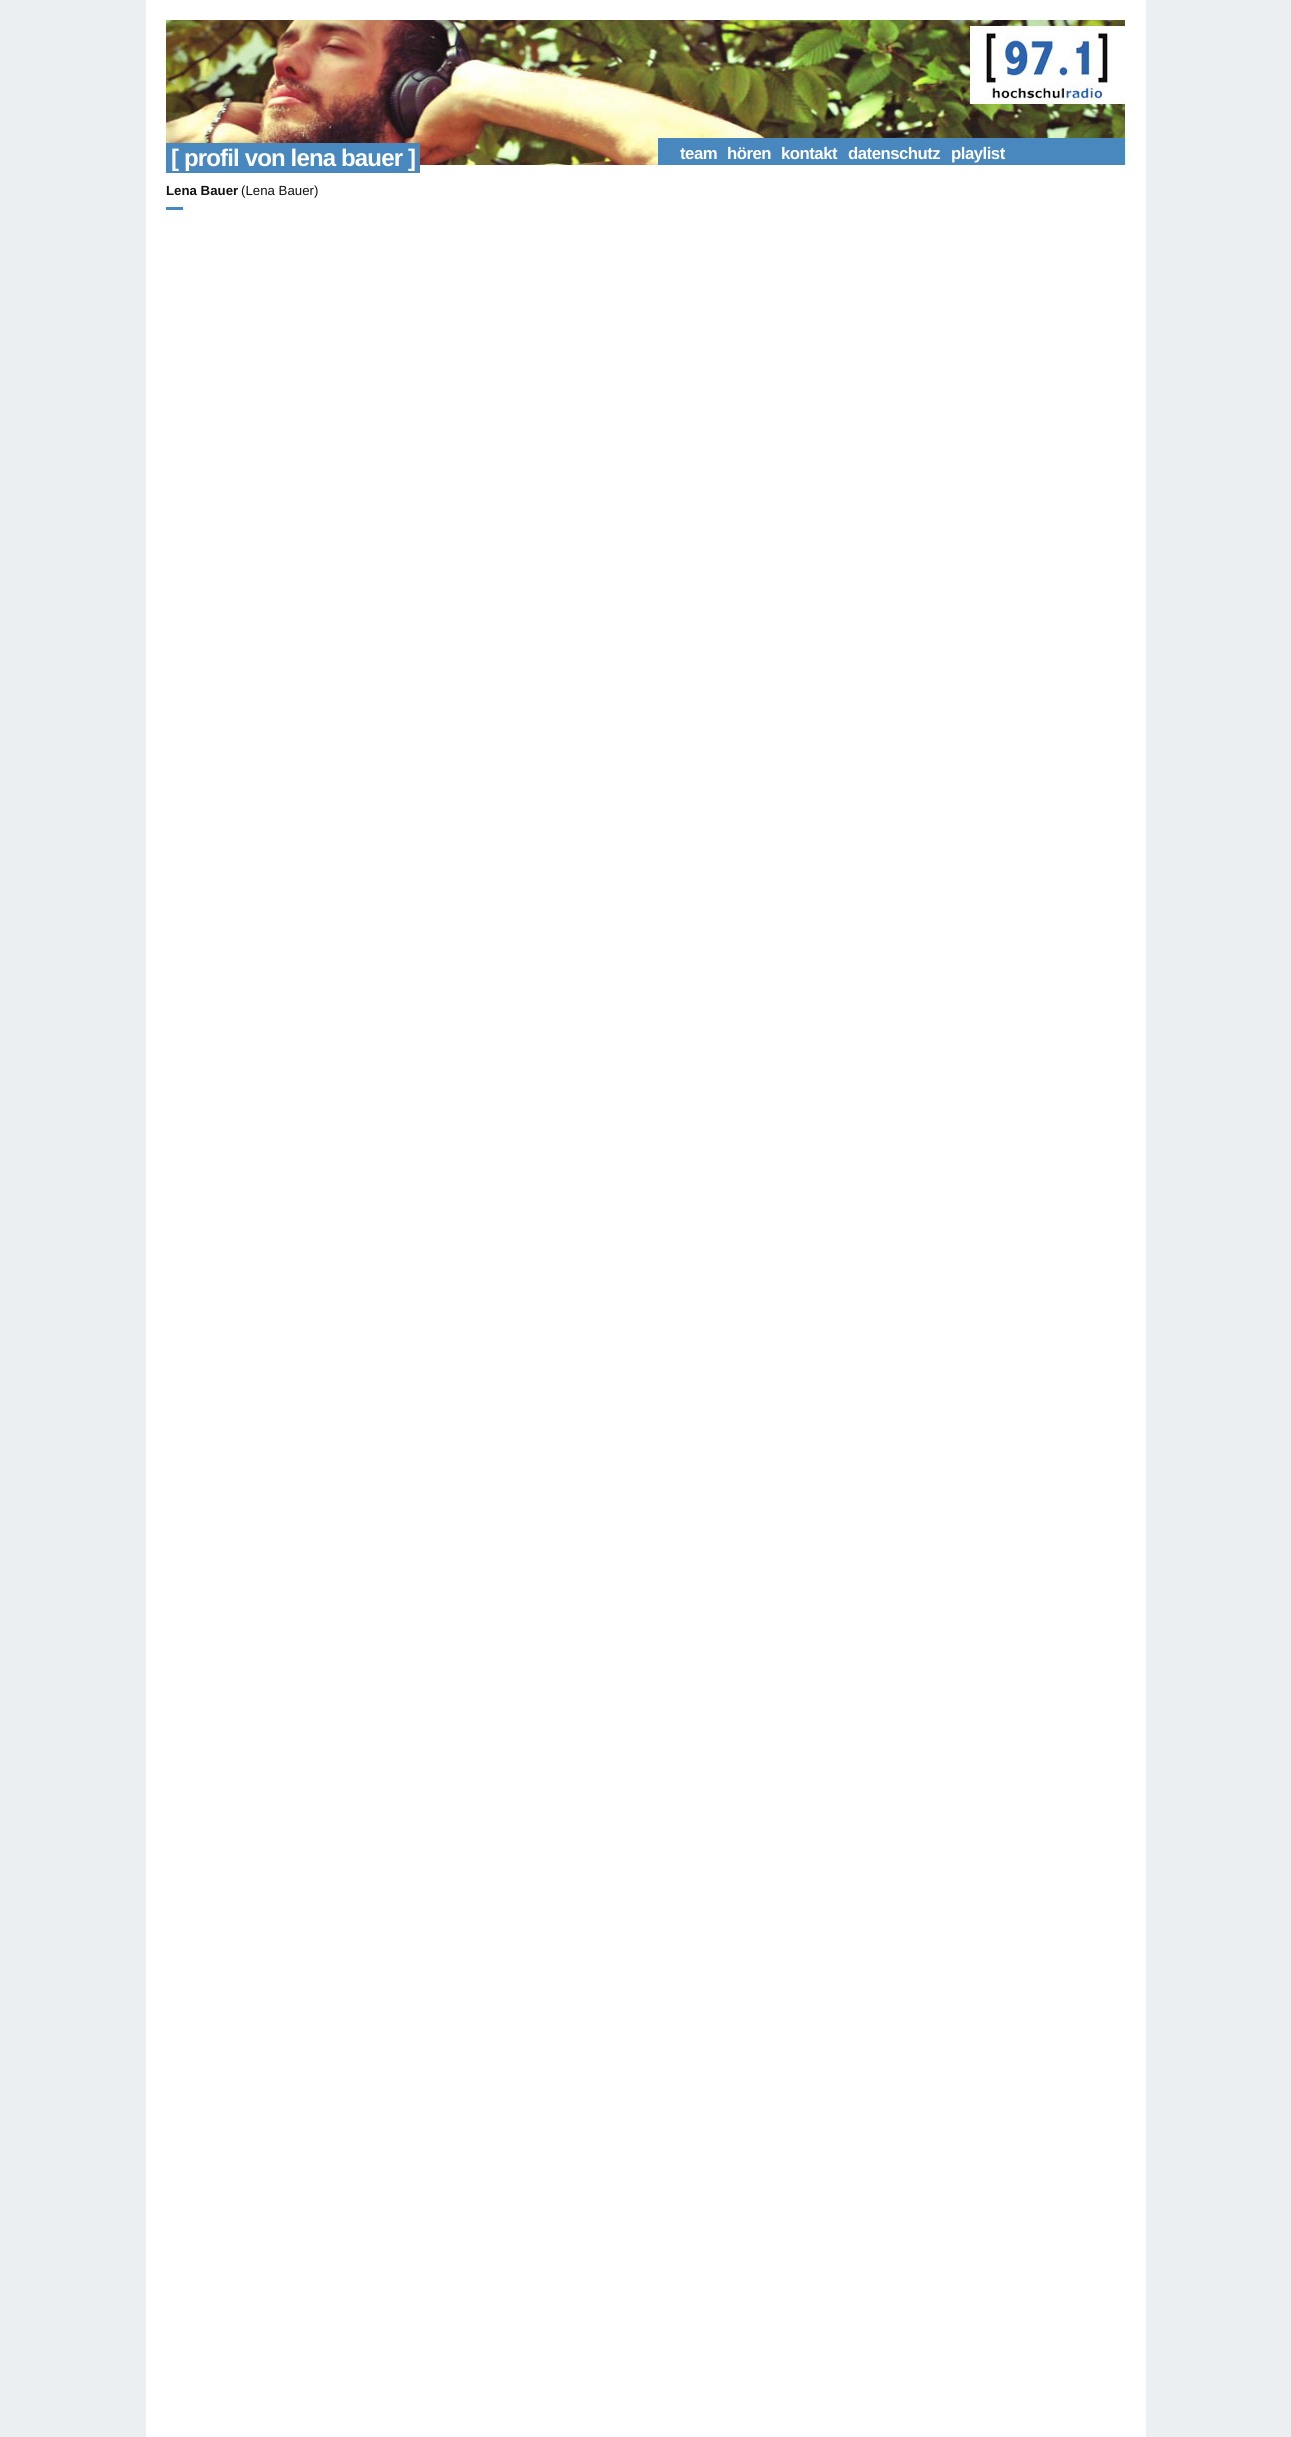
import math
import cairo

surface = cairo.ImageSurface(cairo.FORMAT_RGB24, 1291, 2437)
cr = cairo.Context(surface)
options = cairo.FontOptions()
options.set_hint_metrics(cairo.HINT_METRICS_OFF)
options.set_hint_style(cairo.HINT_STYLE_NONE)
cr.set_font_options(options)
cr.set_miter_limit(4)


def rgb(code):
    cr.set_source_rgb(*(v / 255 for v in bytes.fromhex(code[-6:])))


def tracked(x, y, s, letter, word):
    cr.move_to(x, y)
    for ch in s:
        cr.show_text(ch)
        cr.rel_move_to(letter + word * (ch == ' '), 0)


def image(path, x, y, w, h):
    cr.save()
    cr.set_source_surface(cairo.ImageSurface.create_from_png(path), x, y)
    cr.rectangle(x, y, w, h)
    cr.fill()
    cr.restore()


rgb("#ebeff2")
cr.paint()
rgb("#ffffff")
cr.rectangle(146, 0, 1000, 2437)
cr.fill()
image("img/1.png", 166, 20, 960, 145)
for x, y, w, h, color in [
    (166, 143, 254, 30, "#4988bf"),
    (658, 138, 467, 27, "#4988bf"),
    (166, 207, 17, 3, "#4988bf"),
]:
    rgb(color)
    cr.rectangle(x, y, w, h)
    cr.fill()
cr.select_font_face("Liberation Sans", cairo.FONT_SLANT_NORMAL, cairo.FONT_WEIGHT_BOLD)
cr.set_font_size(24)
rgb("#ffffff")
tracked(171, 166, "[ profil von lena bauer ]", -0.85, 0)
cr.set_font_size(16.75)
for x, y, s in [
    (680, 159, "team"),
    (727, 159, "hören"),
    (781, 159, "kontakt"),
    (848, 159, "datenschutz"),
    (951, 159, "playlist"),
]:
    tracked(x, y, s, -0.5, 0)
cr.set_font_size(13.25)
rgb("#111111")
cr.move_to(166, 195)
cr.show_text("Lena Bauer")
cr.select_font_face("Liberation Sans")
cr.move_to(241, 195)
cr.show_text("(Lena Bauer)")
surface.write_to_png("page.png")
